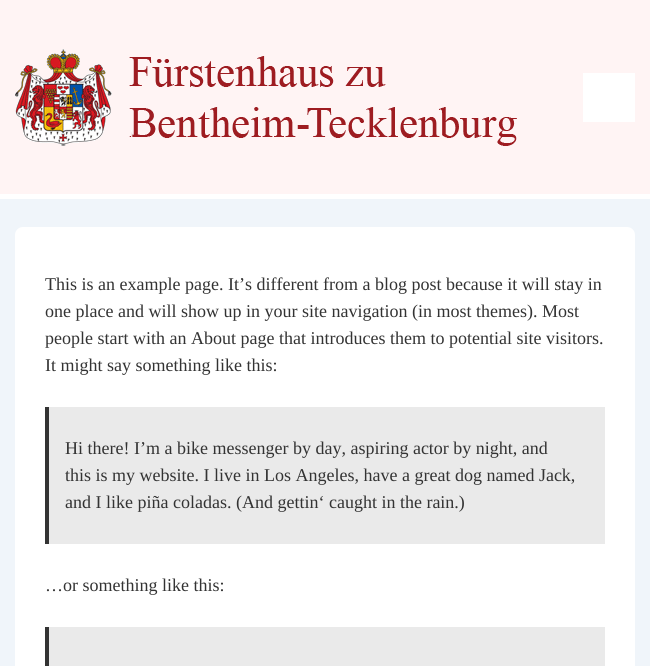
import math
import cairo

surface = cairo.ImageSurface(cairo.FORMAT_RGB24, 650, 666)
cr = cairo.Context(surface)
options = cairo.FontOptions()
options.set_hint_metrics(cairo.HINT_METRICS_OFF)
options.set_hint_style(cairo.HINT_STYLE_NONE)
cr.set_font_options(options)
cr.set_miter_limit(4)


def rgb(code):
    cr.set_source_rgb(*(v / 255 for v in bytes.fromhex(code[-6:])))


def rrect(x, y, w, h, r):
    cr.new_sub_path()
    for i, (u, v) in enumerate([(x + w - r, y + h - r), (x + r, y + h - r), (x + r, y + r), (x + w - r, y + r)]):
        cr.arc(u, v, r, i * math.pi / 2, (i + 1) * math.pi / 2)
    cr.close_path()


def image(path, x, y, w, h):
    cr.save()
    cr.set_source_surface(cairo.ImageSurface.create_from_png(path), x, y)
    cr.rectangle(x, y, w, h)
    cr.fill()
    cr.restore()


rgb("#f0f5fa")
cr.paint()
rgb("#fff4f4")
cr.rectangle(0, 0, 650, 194)
cr.fill()
rgb("#ffffff")
cr.rectangle(0, 194, 650, 5)
cr.fill()
image("img/1.png", 15, 49, 502, 97)
cr.rectangle(583, 73, 52, 49)
cr.fill()
rrect(15, 227, 620, 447, 8)
cr.fill()
for x, y, w, h, color in [
    (49, 407, 556, 137, "#eaeaea"),
    (45, 407, 4, 137, "#333333"),
    (49, 627, 556, 39, "#eaeaea"),
    (45, 627, 4, 39, "#333333"),
]:
    rgb(color)
    cr.rectangle(x, y, w, h)
    cr.fill()
cr.select_font_face("Liberation Serif")
cr.set_font_size(18)
for x, y, s in [
    (45, 290, "This is an example page. It’s different from a blog post because it will stay in"),
    (45, 317, "one place and will show up in your site navigation (in most themes). Most"),
    (45, 344, "people start with an About page that introduces them to potential site visitors."),
    (45, 371, "It might say something like this:"),
    (65, 454, "Hi there! I’m a bike messenger by day, aspiring actor by night, and"),
    (65, 481, "this is my website. I live in Los Angeles, have a great dog named Jack,"),
    (65, 508, "and I like piña coladas. (And gettin‘ caught in the rain.)"),
    (45, 591, "…or something like this:"),
]:
    cr.move_to(x, y)
    cr.show_text(s)
surface.write_to_png("page.png")
